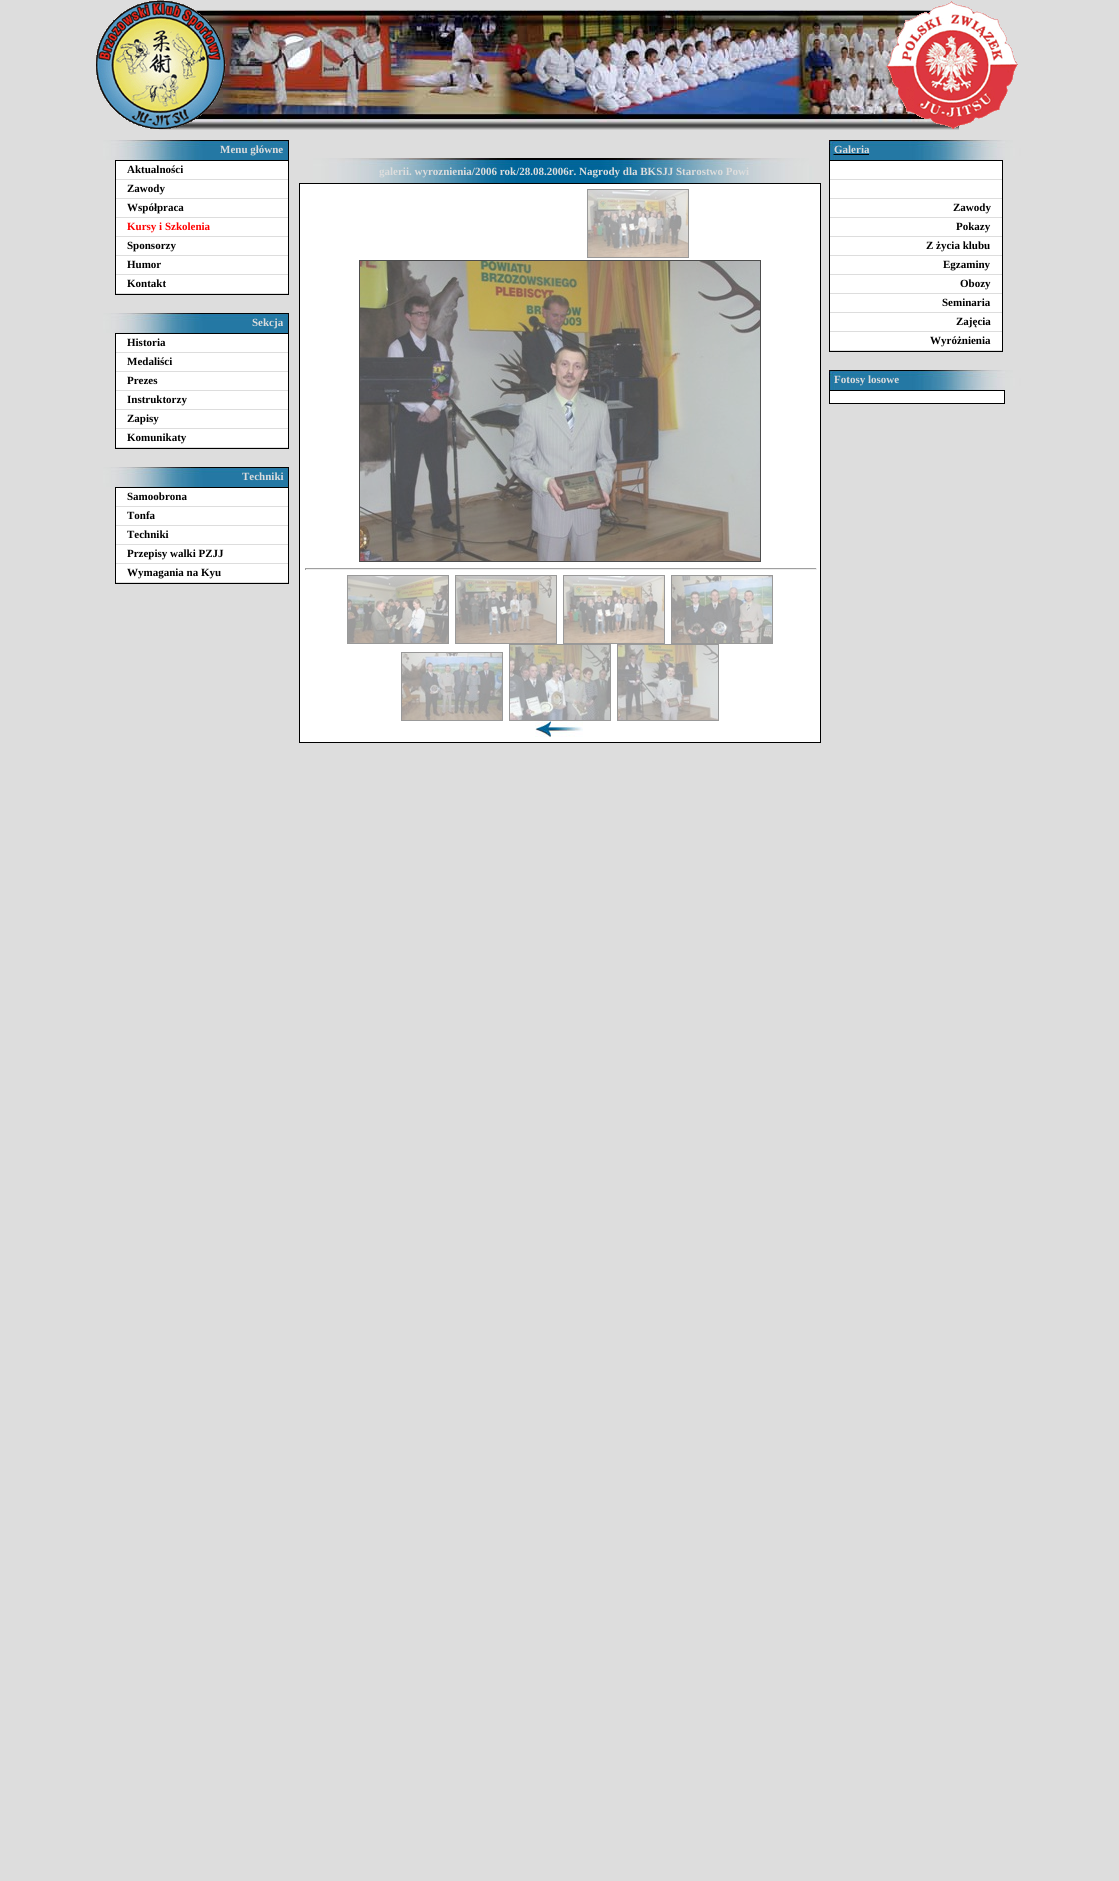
import math
import cairo

surface = cairo.ImageSurface(cairo.FORMAT_RGB24, 1119, 1881)
cr = cairo.Context(surface)
options = cairo.FontOptions()
options.set_hint_metrics(cairo.HINT_METRICS_OFF)
options.set_hint_style(cairo.HINT_STYLE_NONE)
cr.set_font_options(options)
cr.set_miter_limit(4)


def rgb(code):
    cr.set_source_rgb(*(v / 255 for v in bytes.fromhex(code[-6:])))


def image(path, x, y, w, h):
    cr.save()
    cr.set_source_surface(cairo.ImageSurface.create_from_png(path), x, y)
    cr.rectangle(x, y, w, h)
    cr.fill()
    cr.restore()


rgb("#dddddd")
cr.paint()
image("img/3.png", 159, 10, 800, 120)
image("img/1.png", 96, 0, 130, 129)
image("img/2.png", 886, 1, 132, 128)
image("img/4.png", 95, 140, 194, 20)
cr.rectangle(115.5, 160.5, 173, 134)
rgb("#000000")
cr.set_line_width(1)
cr.stroke()
for x, y, w, h, color in [
    (116, 161, 172, 18, "#ffffff"),
    (116, 180, 172, 18, "#ffffff"),
    (116, 199, 172, 18, "#ffffff"),
    (116, 218, 172, 18, "#ffffff"),
    (116, 237, 172, 18, "#ffffff"),
    (116, 256, 172, 18, "#ffffff"),
    (116, 275, 172, 18, "#ffffff"),
]:
    rgb(color)
    cr.rectangle(x, y, w, h)
    cr.fill()
image("img/4.png", 95, 313, 194, 20)
cr.rectangle(115.5, 333.5, 173, 115)
rgb("#000000")
cr.stroke()
for x, y, w, h, color in [
    (116, 334, 172, 18, "#ffffff"),
    (116, 353, 172, 18, "#ffffff"),
    (116, 372, 172, 18, "#ffffff"),
    (116, 391, 172, 18, "#ffffff"),
    (116, 410, 172, 18, "#ffffff"),
    (116, 429, 172, 18, "#ffffff"),
]:
    rgb(color)
    cr.rectangle(x, y, w, h)
    cr.fill()
image("img/4.png", 95, 467, 194, 20)
cr.rectangle(115.5, 487.5, 173, 96)
rgb("#000000")
cr.stroke()
for x, y, w, h, color in [
    (116, 488, 172, 18, "#ffffff"),
    (116, 507, 172, 18, "#ffffff"),
    (116, 526, 172, 18, "#ffffff"),
    (116, 545, 172, 18, "#ffffff"),
    (116, 564, 172, 18, "#ffffff"),
]:
    rgb(color)
    cr.rectangle(x, y, w, h)
    cr.fill()
image("img/5.png", 289, 158, 540, 25)
cr.rectangle(299.5, 183.5, 521, 559)
cr.fill_preserve()
rgb("#000000")
cr.stroke()
cr.rectangle(587.5, 189.5, 101, 68)
rgb("#999999")
cr.stroke()
image("img/6.png", 588, 190, 100, 67)
cr.rectangle(359.5, 260.5, 401, 301)
rgb("#4d4d4d")
cr.stroke()
image("img/7.png", 360, 261, 400, 300)
for x, y, w, h, color in [
    (305, 568, 512, 1, "#9f9f9f"),
    (816, 568, 1, 2, "#eeeeee"),
    (305, 569, 512, 1, "#eeeeee"),
    (305, 568, 1, 2, "#9f9f9f"),
]:
    rgb(color)
    cr.rectangle(x, y, w, h)
    cr.fill()
cr.rectangle(347.5, 575.5, 101, 68)
rgb("#999999")
cr.stroke()
cr.rectangle(455.5, 575.5, 101, 68)
cr.stroke()
cr.rectangle(563.5, 575.5, 101, 68)
cr.stroke()
cr.rectangle(671.5, 575.5, 101, 68)
cr.stroke()
image("img/8.png", 348, 576, 100, 67)
image("img/9.png", 456, 576, 100, 67)
image("img/6.png", 564, 576, 100, 67)
image("img/10.png", 672, 576, 100, 67)
cr.rectangle(509.5, 644.5, 101, 76)
cr.stroke()
cr.rectangle(617.5, 644.5, 101, 76)
cr.stroke()
cr.rectangle(401.5, 652.5, 101, 68)
cr.stroke()
image("img/11.png", 510, 645, 100, 75)
image("img/12.png", 618, 645, 100, 75)
image("img/13.png", 402, 653, 100, 67)
image("img/14.png", 535, 721, 48, 16)
image("img/15.png", 829, 140, 194, 20)
rgb("#000000")
cr.rectangle(868, 154, 1, 1)
cr.fill()
cr.rectangle(829.5, 160.5, 173, 191)
cr.stroke()
for x, y, w, h, color in [
    (830, 161, 172, 18, "#ffffff"),
    (830, 180, 172, 18, "#ffffff"),
    (830, 199, 172, 18, "#ffffff"),
    (830, 218, 172, 18, "#ffffff"),
    (830, 237, 172, 18, "#ffffff"),
    (830, 256, 172, 18, "#ffffff"),
    (830, 275, 172, 18, "#ffffff"),
    (830, 294, 172, 18, "#ffffff"),
    (830, 313, 172, 18, "#ffffff"),
    (830, 332, 172, 18, "#ffffff"),
]:
    rgb(color)
    cr.rectangle(x, y, w, h)
    cr.fill()
image("img/16.png", 829, 370, 194, 20)
cr.rectangle(829.5, 390.5, 175, 13)
cr.fill_preserve()
rgb("#000000")
cr.stroke()
cr.select_font_face("Liberation Serif", cairo.FONT_SLANT_NORMAL, cairo.FONT_WEIGHT_BOLD)
cr.set_font_size(11)
rgb("#dddddd")
cr.move_to(220, 153)
cr.show_text("Menu główne")
rgb("#000000")
for x, y, s in [
    (127, 173, "Aktualności"),
    (127, 192, "Zawody"),
    (127, 211, "Współpraca"),
]:
    cr.move_to(x, y)
    cr.show_text(s)
rgb("#ff0000")
cr.move_to(127, 230)
cr.show_text("Kursy i Szkolenia")
rgb("#000000")
for x, y, s in [
    (127, 249, "Sponsorzy"),
    (127, 268, "Humor"),
    (127, 287, "Kontakt"),
]:
    cr.move_to(x, y)
    cr.show_text(s)
rgb("#dddddd")
cr.move_to(252, 326)
cr.show_text("Sekcja")
rgb("#000000")
for x, y, s in [
    (127, 346, "Historia"),
    (127, 365, "Medaliści"),
    (127, 384, "Prezes"),
    (127, 403, "Instruktorzy"),
    (127, 422, "Zapisy"),
    (127, 441, "Komunikaty"),
]:
    cr.move_to(x, y)
    cr.show_text(s)
rgb("#dddddd")
cr.move_to(242, 480)
cr.show_text("Techniki")
rgb("#000000")
for x, y, s in [
    (127, 500, "Samoobrona"),
    (127, 519, "Tonfa"),
    (127, 538, "Techniki"),
    (127, 557, "Przepisy walki PZJJ"),
    (127, 576, "Wymagania na Kyu"),
]:
    cr.move_to(x, y)
    cr.show_text(s)
rgb("#dddddd")
cr.move_to(379, 175)
cr.show_text("galerii. wyroznienia/2006 rok/28.08.2006r. Nagrody dla BKSJJ Starostwo Powi")
cr.move_to(834, 153)
cr.show_text("Galeria")
rgb("#000000")
for x, y, s in [
    (953, 211, "Zawody"),
    (956, 230, "Pokazy"),
    (926, 249, "Z życia klubu"),
    (943, 268, "Egzaminy"),
    (960, 287, "Obozy"),
    (942, 306, "Seminaria"),
    (956, 325, "Zajęcia"),
    (930, 344, "Wyróżnienia"),
]:
    cr.move_to(x, y)
    cr.show_text(s)
rgb("#dddddd")
cr.move_to(834, 383)
cr.show_text("Fotosy losowe")
surface.write_to_png("page.png")
